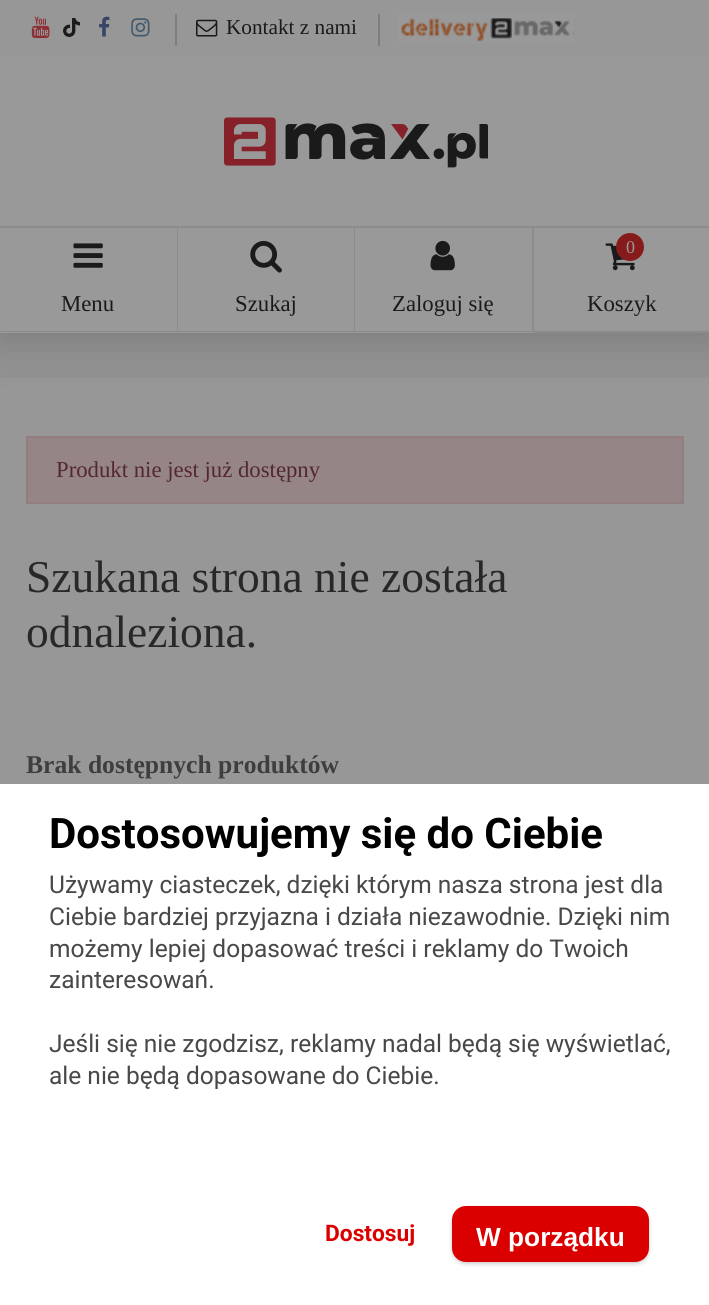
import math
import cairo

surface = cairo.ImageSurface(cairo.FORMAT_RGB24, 709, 1305)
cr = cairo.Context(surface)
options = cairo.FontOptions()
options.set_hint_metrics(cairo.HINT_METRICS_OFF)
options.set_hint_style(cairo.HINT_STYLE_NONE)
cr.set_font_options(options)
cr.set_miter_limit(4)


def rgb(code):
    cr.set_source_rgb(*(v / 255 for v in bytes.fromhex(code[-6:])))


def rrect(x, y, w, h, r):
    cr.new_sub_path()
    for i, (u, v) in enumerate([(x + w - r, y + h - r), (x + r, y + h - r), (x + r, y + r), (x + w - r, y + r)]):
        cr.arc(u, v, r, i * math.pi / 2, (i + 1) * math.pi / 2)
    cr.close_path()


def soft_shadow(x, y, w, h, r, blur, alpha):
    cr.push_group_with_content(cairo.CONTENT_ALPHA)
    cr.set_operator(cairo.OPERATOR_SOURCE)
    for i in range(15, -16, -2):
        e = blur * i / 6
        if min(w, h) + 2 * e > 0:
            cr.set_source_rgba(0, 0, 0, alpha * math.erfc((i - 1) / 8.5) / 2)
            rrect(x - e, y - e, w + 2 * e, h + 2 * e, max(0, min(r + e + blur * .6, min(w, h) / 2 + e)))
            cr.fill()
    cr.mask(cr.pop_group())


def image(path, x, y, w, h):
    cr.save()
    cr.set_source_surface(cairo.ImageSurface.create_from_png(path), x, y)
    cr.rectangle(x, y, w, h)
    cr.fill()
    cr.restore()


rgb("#979797")
cr.paint()
rgb("#929292")
cr.rectangle(0, 333, 709, 45)
cr.fill()
rgb("#1a1a1a")
soft_shadow(0, 9, 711, 332, 0, 22, 0.18)
rgb("#999999")
cr.rectangle(0, 56, 709, 277)
cr.fill()
rgb("#979797")
cr.rectangle(0, 0, 709, 56)
cr.fill()
image("img/1.png", 31, 16, 19, 23)
image("img/2.png", 63, 18, 18, 19)
image("img/3.png", 99, 16, 11, 21)
image("img/4.png", 131, 18, 19, 19)
rgb("#7e7e7e")
cr.rectangle(175, 14, 2, 32)
cr.fill()
image("img/5.png", 196, 19, 22, 18)
cr.rectangle(378, 14, 2, 32)
cr.fill()
image("img/6.png", 398, 14, 176, 29)
image("img/7.png", 224, 117, 264, 51)
rgb("#8c8c8c")
cr.new_path()
cr.move_to(0, 226)
cr.line_to(178, 226)
cr.line_to(177, 228)
cr.line_to(0, 228)
cr.close_path()
cr.fill()
cr.set_source_rgba(0.141, 0.141, 0.141, 0.11)
cr.new_path()
cr.move_to(178, 226)
cr.line_to(178, 332)
cr.line_to(177, 331)
cr.line_to(177, 228)
cr.close_path()
cr.fill()
cr.new_path()
cr.move_to(178, 332)
cr.line_to(0, 332)
cr.line_to(0, 331)
cr.line_to(177, 331)
cr.close_path()
cr.fill()
image("img/8.png", 73, 243, 30, 25)
rgb("#8c8c8c")
cr.new_path()
cr.move_to(178, 226)
cr.line_to(355, 226)
cr.line_to(354, 228)
cr.line_to(178, 228)
cr.close_path()
cr.fill()
cr.set_source_rgba(0.141, 0.141, 0.141, 0.11)
cr.new_path()
cr.move_to(355, 226)
cr.line_to(355, 332)
cr.line_to(354, 331)
cr.line_to(354, 228)
cr.close_path()
cr.fill()
cr.new_path()
cr.move_to(355, 332)
cr.line_to(178, 332)
cr.line_to(178, 331)
cr.line_to(354, 331)
cr.close_path()
cr.fill()
image("img/9.png", 250, 240, 32, 33)
rgb("#8c8c8c")
cr.new_path()
cr.move_to(355, 226)
cr.line_to(534, 226)
cr.line_to(532, 228)
cr.line_to(355, 228)
cr.close_path()
cr.fill()
cr.set_source_rgba(0.141, 0.141, 0.141, 0.11)
cr.new_path()
cr.move_to(534, 226)
cr.line_to(534, 332)
cr.line_to(532, 331)
cr.line_to(532, 228)
cr.close_path()
cr.fill()
cr.new_path()
cr.move_to(534, 332)
cr.line_to(355, 332)
cr.line_to(355, 331)
cr.line_to(532, 331)
cr.close_path()
cr.fill()
image("img/10.png", 430, 240, 25, 31)
rgb("#8c8c8c")
cr.rectangle(534, 226, 175, 2)
cr.fill()
cr.rectangle(534, 331, 175, 2)
cr.fill()
image("img/11.png", 605, 243, 30, 28)
rgb("#871a1a")
cr.arc(630, 247, 14, 0, 2 * math.pi)
cr.fill()
rgb("#968587")
cr.rectangle(27, 437, 656, 66)
cr.fill_preserve()
rgb("#947d7f")
cr.stroke()
rgb("#ffffff")
cr.rectangle(0, 784, 709, 521)
cr.fill()
rgb("#000000")
soft_shadow(452, 1208, 197, 56, 14, 2, 0.2)
rgb("#db0000")
rrect(452, 1206, 197, 56, 14)
cr.fill()
cr.select_font_face("Liberation Serif")
cr.set_font_size(21.25)
rgb("#1a1a1a")
cr.move_to(226, 34)
cr.show_text("Kontakt z nami")
cr.set_font_size(22.75)
for x, y, s in [
    (61, 311, "Menu"),
    (235, 311, "Szukaj"),
    (392, 311, "Zaloguj się"),
]:
    cr.move_to(x, y)
    cr.show_text(s)
cr.set_font_size(18)
rgb("#999999")
cr.move_to(626, 253)
cr.show_text("0")
cr.set_font_size(22.75)
rgb("#1a1a1a")
cr.move_to(587, 311)
cr.show_text("Koszyk")
rgb("#53282c")
cr.move_to(56, 477)
cr.show_text("Produkt nie jest już dostępny")
cr.set_font_size(45.5)
rgb("#282828")
cr.move_to(26, 592)
cr.show_text("Szukana strona nie została")
cr.move_to(26, 647)
cr.show_text("odnaleziona.")
cr.select_font_face("Liberation Serif", cairo.FONT_SLANT_NORMAL, cairo.FONT_WEIGHT_BOLD)
cr.set_font_size(25.6)
rgb("#3e3e3e")
cr.move_to(26, 773)
cr.show_text("Brak dostępnych produktów")
cr.select_font_face("Roboto", cairo.FONT_SLANT_NORMAL, cairo.FONT_WEIGHT_BOLD)
cr.set_font_size(42)
rgb("#000000")
cr.move_to(49, 848)
cr.show_text("Dostosowujemy się do Ciebie")
cr.select_font_face("Roboto")
cr.set_font_size(24.5)
rgb("#484848")
for x, y, s in [
    (49, 893, "Używamy ciasteczek, dzięki którym nasza strona jest dla"),
    (49, 925, "Ciebie bardziej przyjazna i działa niezawodnie. Dzięki nim"),
    (49, 957, "możemy lepiej dopasować treści i reklamy do Twoich"),
    (49, 988, "zainteresowań."),
    (49, 1052, "Jeśli się nie zgodzisz, reklamy nadal będą się wyświetlać,"),
    (49, 1084, "ale nie będą dopasowane do Ciebie."),
]:
    cr.move_to(x, y)
    cr.show_text(s)
cr.select_font_face("Roboto", cairo.FONT_SLANT_NORMAL, cairo.FONT_WEIGHT_BOLD)
cr.set_font_size(22.75)
rgb("#db0000")
cr.move_to(325, 1241)
cr.show_text("Dostosuj")
cr.select_font_face("Liberation Sans", cairo.FONT_SLANT_NORMAL, cairo.FONT_WEIGHT_BOLD)
cr.set_font_size(26.25)
rgb("#ffffff")
cr.move_to(476, 1246)
cr.show_text("W porządku")
surface.write_to_png("page.png")
